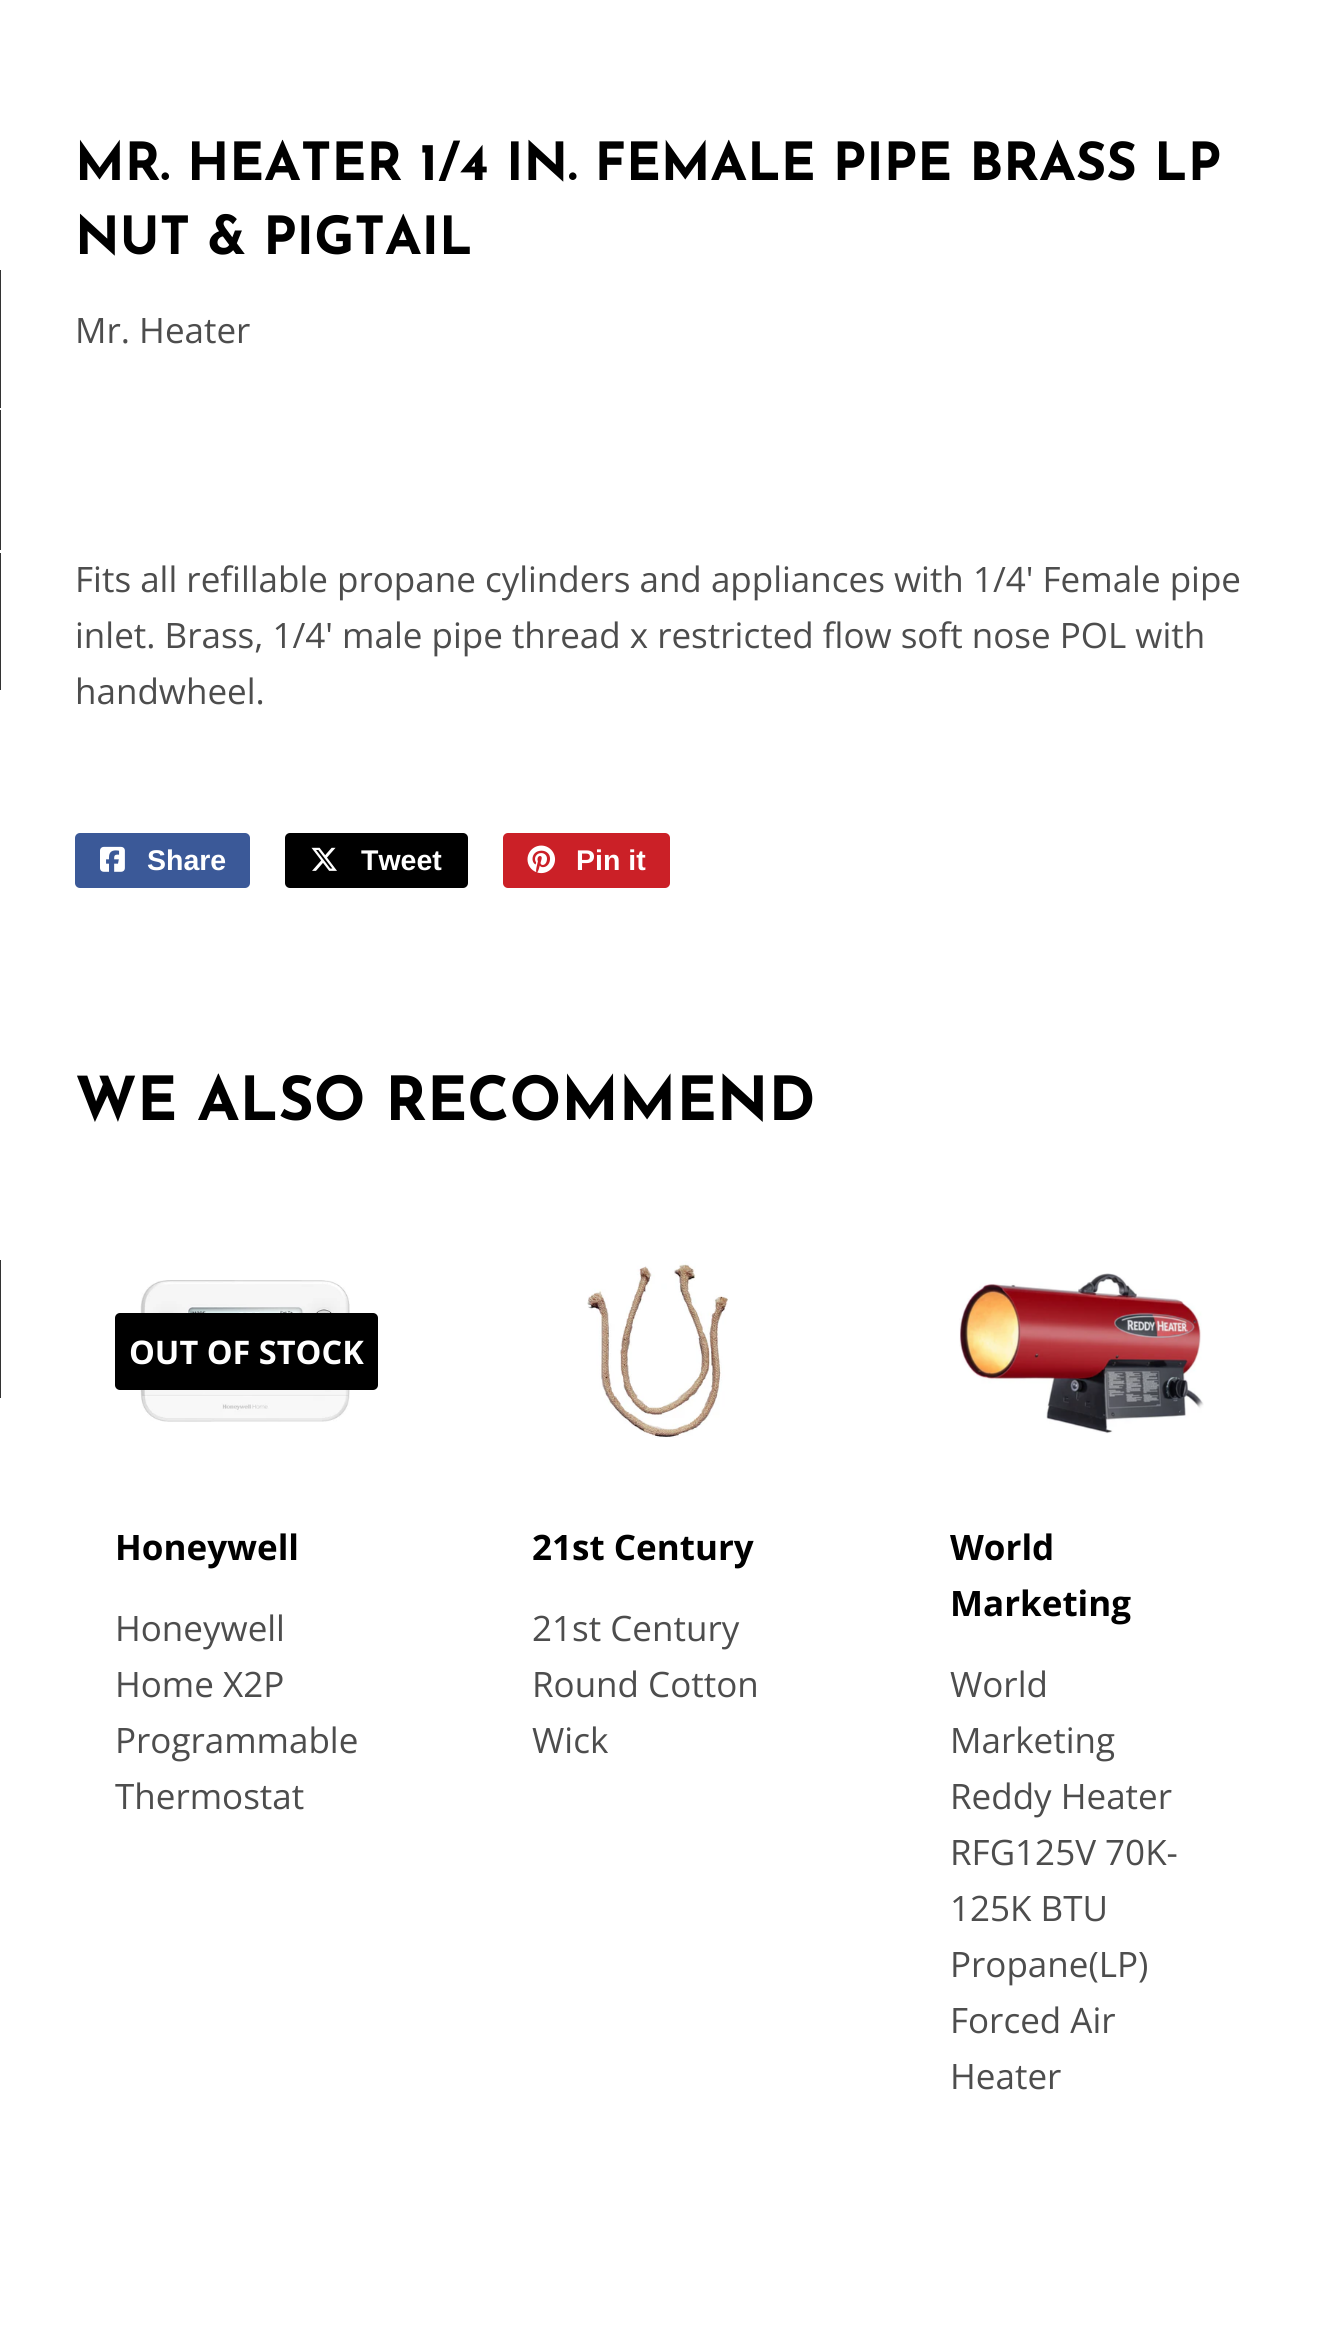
import math
import cairo

surface = cairo.ImageSurface(cairo.FORMAT_RGB24, 1327, 2346)
cr = cairo.Context(surface)
options = cairo.FontOptions()
options.set_hint_metrics(cairo.HINT_METRICS_OFF)
options.set_hint_style(cairo.HINT_STYLE_NONE)
cr.set_font_options(options)
cr.set_miter_limit(4)


def rgb(code):
    cr.set_source_rgb(*(v / 255 for v in bytes.fromhex(code[-6:])))


def rrect(x, y, w, h, r):
    cr.new_sub_path()
    for i, (u, v) in enumerate([(x + w - r, y + h - r), (x + r, y + h - r), (x + r, y + r), (x + w - r, y + r)]):
        cr.arc(u, v, r, i * math.pi / 2, (i + 1) * math.pi / 2)
    cr.close_path()


def image(path, x, y, w, h):
    cr.save()
    cr.set_source_surface(cairo.ImageSurface.create_from_png(path), x, y)
    cr.rectangle(x, y, w, h)
    cr.fill()
    cr.restore()


rgb("#ffffff")
cr.paint()
for x, y, w, h, color in [
    (0, 270, 1, 138, "#333333"),
    (0, 410, 1, 140, "#333333"),
    (0, 553, 1, 137, "#333333"),
    (0, 1260, 1, 138, "#333333"),
]:
    rgb(color)
    cr.rectangle(x, y, w, h)
    cr.fill()
rgb("#3b5998")
rrect(75, 833, 175, 55, 5)
cr.fill()
image("img/1.png", 100, 846, 25, 26)
rgb("#000000")
rrect(285, 833, 183, 55, 5)
cr.fill()
image("img/2.png", 311, 847, 26, 24)
rgb("#cb2027")
rrect(503, 833, 167, 55, 5)
cr.fill()
image("img/3.png", 527, 845, 29, 29)
image("img/4.png", 140, 1280, 210, 142)
rgb("#000000")
rrect(115, 1313, 263, 77, 5)
cr.fill()
image("img/5.png", 587, 1261, 141, 177)
image("img/6.png", 959, 1273, 245, 161)
cr.select_font_face("Josefin Sans", cairo.FONT_SLANT_NORMAL, cairo.FONT_WEIGHT_BOLD)
cr.set_font_size(52.5)
cr.move_to(75, 180)
cr.show_text("MR. HEATER 1/4 IN. FEMALE PIPE BRASS LP")
cr.move_to(75, 254)
cr.show_text("NUT & PIGTAIL")
cr.select_font_face("Open Sans")
cr.set_font_size(35)
rgb("#4d4d4d")
for x, y, s in [
    (75, 343, "Mr. Heater"),
    (75, 592, "Fits all refillable propane cylinders and appliances with 1/4' Female pipe"),
    (75, 648, "inlet. Brass, 1/4' male pipe thread x restricted flow soft nose POL with"),
    (75, 704, "handwheel."),
]:
    cr.move_to(x, y)
    cr.show_text(s)
cr.select_font_face("Liberation Sans", cairo.FONT_SLANT_NORMAL, cairo.FONT_WEIGHT_BOLD)
cr.set_font_size(28.5)
rgb("#ffffff")
for x, y, s in [
    (147, 870, "Share"),
    (361, 870, "Tweet"),
    (576, 870, "Pin it"),
]:
    cr.move_to(x, y)
    cr.show_text(s)
cr.select_font_face("Josefin Sans", cairo.FONT_SLANT_NORMAL, cairo.FONT_WEIGHT_BOLD)
cr.set_font_size(60.7)
rgb("#000000")
cr.move_to(75, 1120)
cr.show_text("WE ALSO RECOMMEND")
cr.select_font_face("Open Sans", cairo.FONT_SLANT_NORMAL, cairo.FONT_WEIGHT_BOLD)
cr.set_font_size(32.5)
rgb("#ffffff")
cr.move_to(129, 1364)
cr.show_text("OUT OF STOCK")
cr.set_font_size(35)
rgb("#000000")
cr.move_to(115, 1560)
cr.show_text("Honeywell")
cr.select_font_face("Open Sans")
rgb("#4d4d4d")
for x, y, s in [
    (115, 1641, "Honeywell"),
    (115, 1697, "Home X2P"),
    (115, 1753, "Programmable"),
    (115, 1809, "Thermostat"),
]:
    cr.move_to(x, y)
    cr.show_text(s)
cr.select_font_face("Open Sans", cairo.FONT_SLANT_NORMAL, cairo.FONT_WEIGHT_BOLD)
rgb("#000000")
cr.move_to(532, 1560)
cr.show_text("21st Century")
cr.select_font_face("Open Sans")
rgb("#4d4d4d")
for x, y, s in [
    (532, 1641, "21st Century"),
    (532, 1697, "Round Cotton"),
    (532, 1753, "Wick"),
]:
    cr.move_to(x, y)
    cr.show_text(s)
cr.select_font_face("Open Sans", cairo.FONT_SLANT_NORMAL, cairo.FONT_WEIGHT_BOLD)
rgb("#000000")
cr.move_to(950, 1560)
cr.show_text("World")
cr.move_to(950, 1616)
cr.show_text("Marketing")
cr.select_font_face("Open Sans")
rgb("#4d4d4d")
for x, y, s in [
    (950, 1697, "World"),
    (950, 1753, "Marketing"),
    (950, 1809, "Reddy Heater"),
    (950, 1865, "RFG125V 70K-"),
    (950, 1921, "125K BTU"),
    (950, 1977, "Propane(LP)"),
    (950, 2033, "Forced Air"),
    (950, 2089, "Heater"),
]:
    cr.move_to(x, y)
    cr.show_text(s)
surface.write_to_png("page.png")
